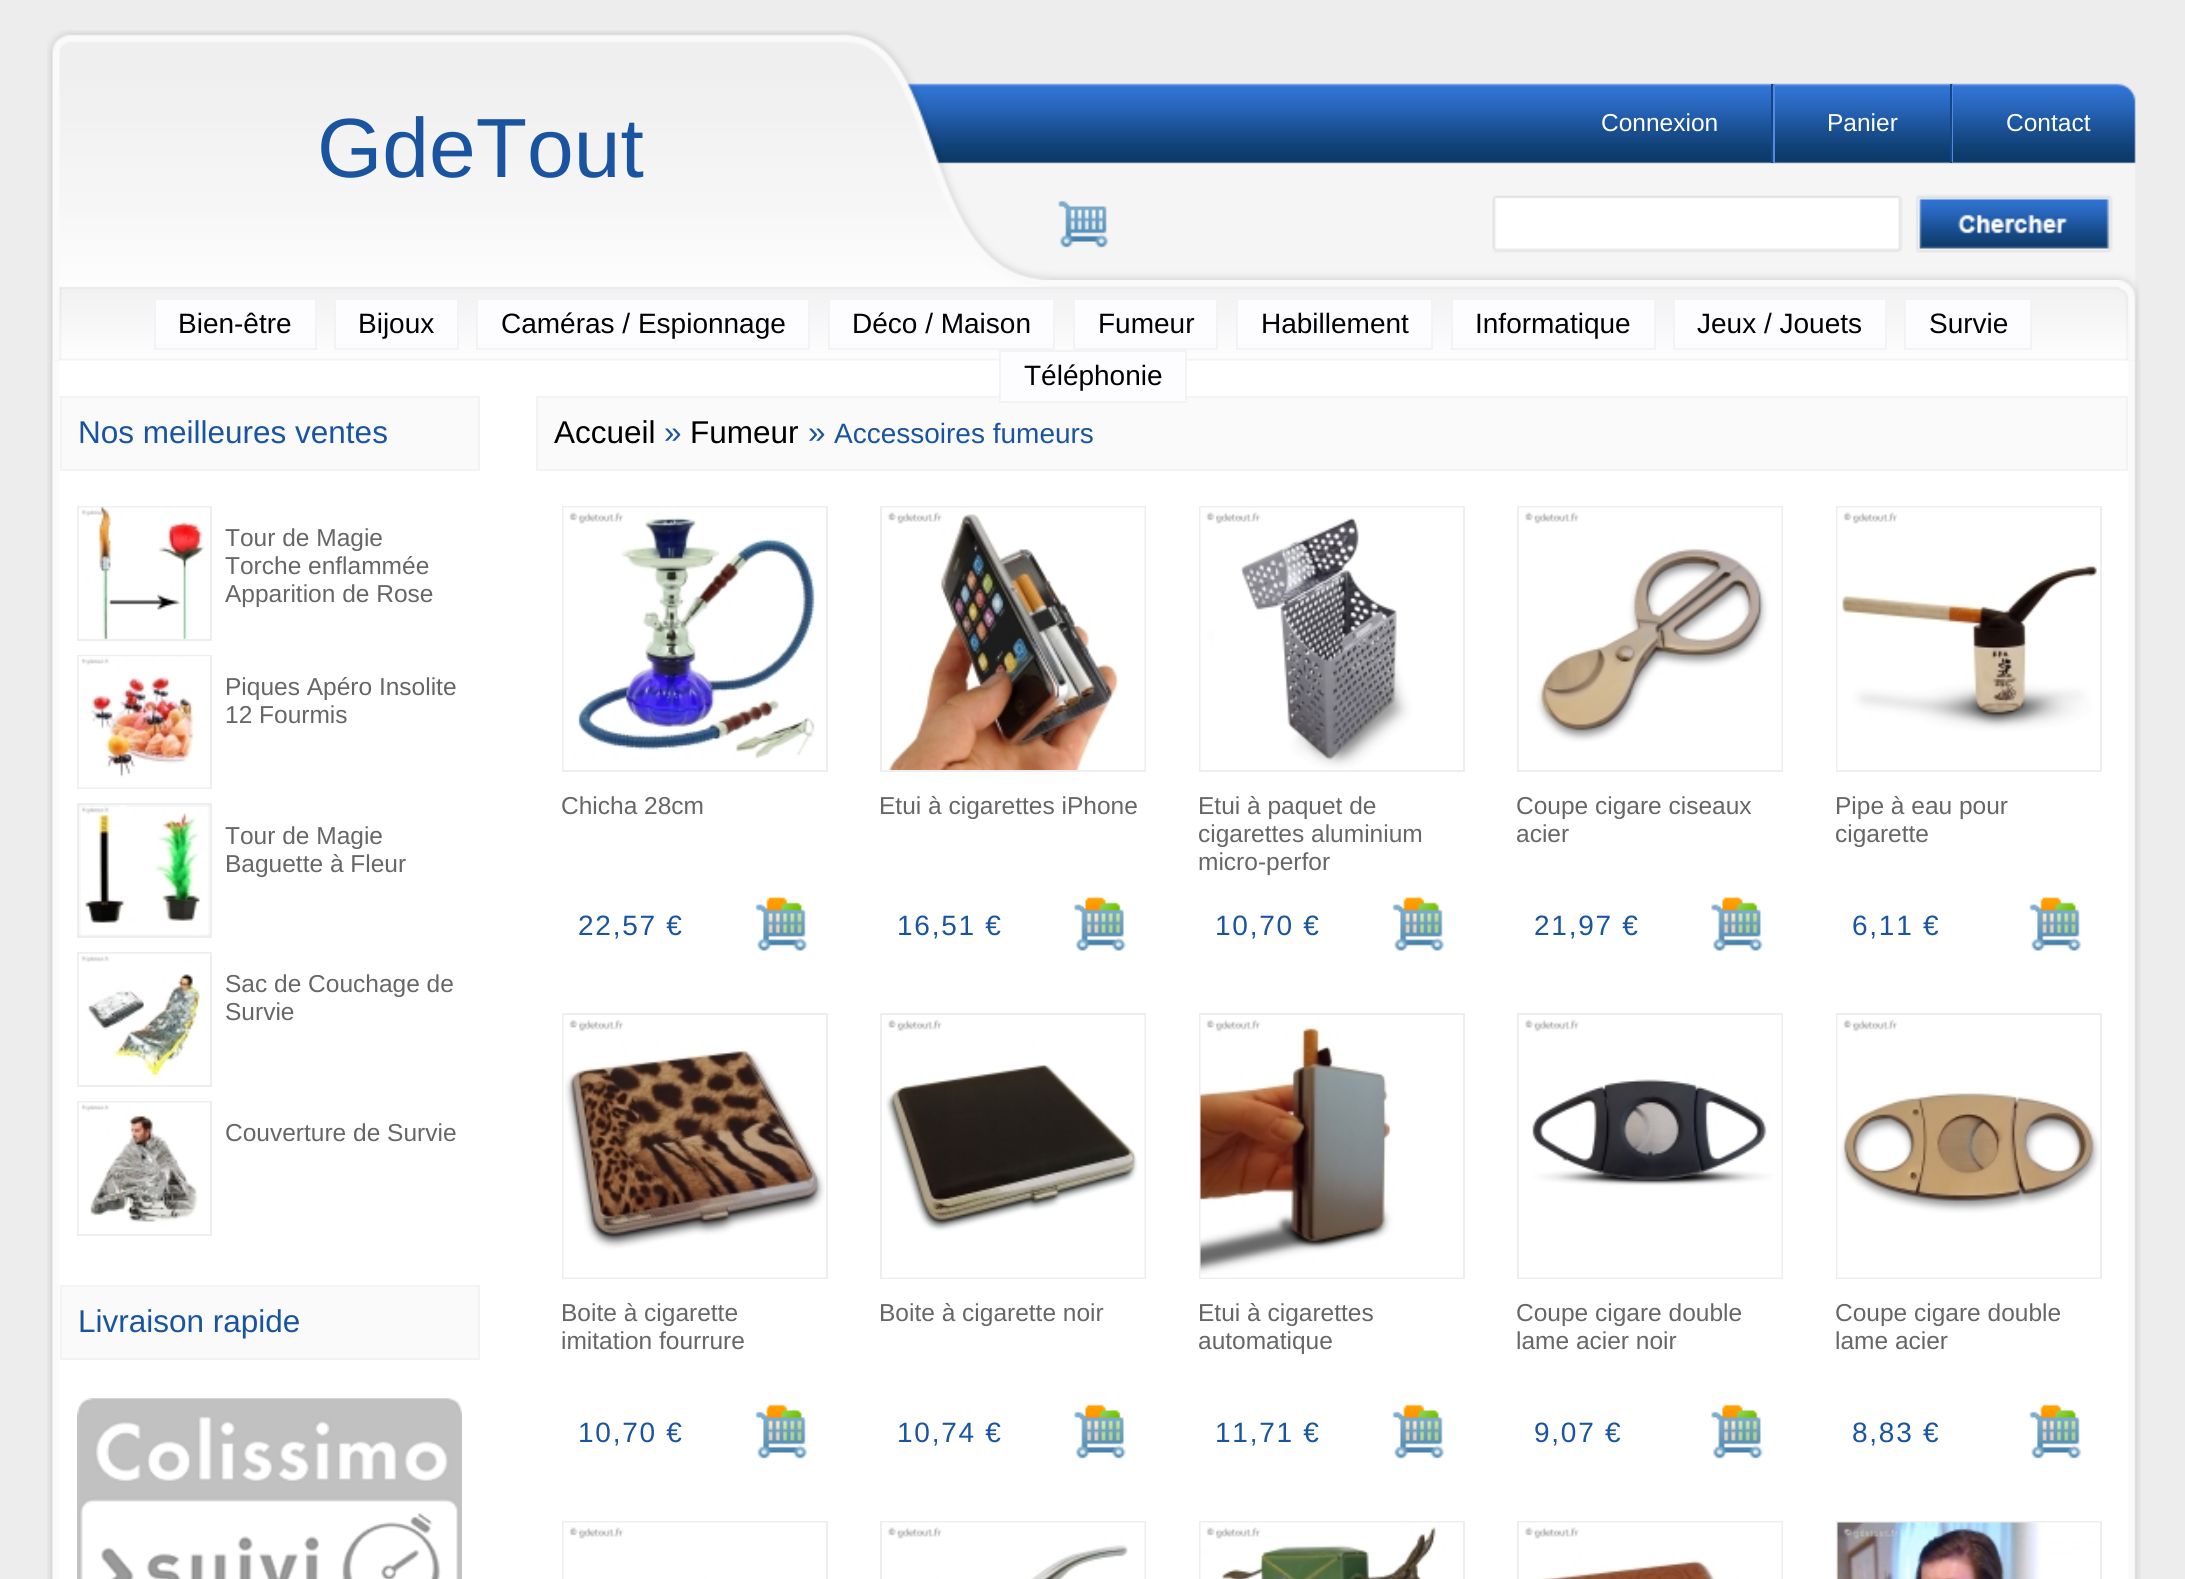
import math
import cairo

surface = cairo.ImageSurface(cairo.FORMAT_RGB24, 2185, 1579)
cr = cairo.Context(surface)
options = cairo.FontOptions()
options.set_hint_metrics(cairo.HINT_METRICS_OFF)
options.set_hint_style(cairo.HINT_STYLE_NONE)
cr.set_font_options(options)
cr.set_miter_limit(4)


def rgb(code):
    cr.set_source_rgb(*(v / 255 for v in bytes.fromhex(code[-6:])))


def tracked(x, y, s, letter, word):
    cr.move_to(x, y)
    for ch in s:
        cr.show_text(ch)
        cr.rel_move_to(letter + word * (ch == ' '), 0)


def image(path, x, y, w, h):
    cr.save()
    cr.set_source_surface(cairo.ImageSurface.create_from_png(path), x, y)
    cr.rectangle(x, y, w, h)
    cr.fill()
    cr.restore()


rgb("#ededed")
cr.paint()
image("img/1.png", 47, 30, 2089, 250)
for x, y, w, h, color in [
    (1771, 84, 2, 79, "#124686"),
    (1950, 84, 2, 79, "#124686"),
    (1773, 84, 2, 79, "#5589dd"),
    (1952, 84, 1, 79, "#5589dd"),
]:
    rgb(color)
    cr.rectangle(x, y, w, h)
    cr.fill()
image("img/2.png", 47, 280, 2093, 81)
rgb("#fdfdff")
cr.rectangle(156, 300, 159, 44)
cr.fill()
cr.rectangle(155, 299, 161, 50)
rgb("#f3f3f5")
cr.stroke()
rgb("#fdfdff")
cr.rectangle(336, 300, 121, 44)
cr.fill()
cr.rectangle(335, 299, 123, 50)
rgb("#f3f3f5")
cr.stroke()
rgb("#fdfdff")
cr.rectangle(478, 300, 330, 44)
cr.fill()
cr.rectangle(477, 299, 332, 50)
rgb("#f3f3f5")
cr.stroke()
rgb("#fdfdff")
cr.rectangle(830, 300, 223, 44)
cr.fill()
cr.rectangle(829, 299, 225, 50)
rgb("#f3f3f5")
cr.stroke()
rgb("#fdfdff")
cr.rectangle(1075, 300, 141, 44)
cr.fill()
cr.rectangle(1074, 299, 143, 50)
rgb("#f3f3f5")
cr.stroke()
rgb("#fdfdff")
cr.rectangle(1238, 300, 193, 44)
cr.fill()
cr.rectangle(1237, 299, 195, 50)
rgb("#f3f3f5")
cr.stroke()
rgb("#fdfdff")
cr.rectangle(1453, 300, 201, 44)
cr.fill()
cr.rectangle(1452, 299, 203, 50)
rgb("#f3f3f5")
cr.stroke()
rgb("#fdfdff")
cr.rectangle(1675, 300, 210, 44)
cr.fill()
cr.rectangle(1674, 299, 212, 50)
rgb("#f3f3f5")
cr.stroke()
rgb("#fdfdff")
cr.rectangle(1906, 300, 124, 44)
cr.fill()
cr.rectangle(1905, 299, 126, 50)
rgb("#f3f3f5")
cr.stroke()
image("img/3.png", 47, 360, 2094, 1219)
rgb("#fafafa")
cr.rectangle(537, 397, 1590, 73)
cr.fill_preserve()
rgb("#f3f3f5")
cr.stroke()
rgb("#fdfdff")
cr.rectangle(1001, 358, 184, 43)
cr.fill()
cr.rectangle(1000, 351, 186, 51)
rgb("#f3f3f5")
cr.stroke()
rgb("#fafafa")
cr.rectangle(61, 397, 418, 73)
cr.fill_preserve()
rgb("#f3f3f5")
cr.stroke()
cr.rectangle(78, 507, 133, 133)
rgb("#eeeeee")
cr.stroke()
image("img/4.png", 78, 507, 132, 132)
cr.rectangle(78, 656, 133, 132)
cr.stroke()
image("img/5.png", 78, 656, 132, 132)
cr.rectangle(78, 804, 133, 133)
cr.stroke()
image("img/6.png", 79, 805, 131, 131)
cr.rectangle(78, 953, 133, 133)
cr.stroke()
image("img/7.png", 78, 953, 132, 132)
cr.rectangle(78, 1102, 133, 133)
cr.stroke()
image("img/8.png", 78, 1102, 132, 131)
image("img/9.png", 77, 1398, 385, 181)
rgb("#fafafa")
cr.rectangle(61, 1286, 418, 73)
cr.fill_preserve()
rgb("#f3f3f5")
cr.stroke()
cr.rectangle(563, 507, 264, 264)
rgb("#eeeeee")
cr.stroke()
image("img/10.png", 563, 507, 263, 263)
image("img/11.png", 755, 897, 53, 54)
cr.rectangle(881, 507, 264, 264)
cr.stroke()
image("img/12.png", 882, 507, 263, 263)
image("img/13.png", 1074, 897, 52, 54)
cr.rectangle(1200, 507, 264, 264)
cr.stroke()
image("img/14.png", 1200, 507, 263, 263)
image("img/11.png", 1392, 897, 53, 54)
cr.rectangle(1518, 507, 264, 264)
cr.stroke()
image("img/15.png", 1519, 507, 263, 263)
image("img/13.png", 1711, 897, 52, 54)
cr.rectangle(1837, 507, 264, 264)
cr.stroke()
image("img/16.png", 1837, 507, 263, 263)
image("img/11.png", 2029, 897, 53, 54)
cr.rectangle(563, 1014, 264, 264)
cr.stroke()
image("img/17.png", 563, 1015, 263, 263)
image("img/18.png", 755, 1404, 53, 55)
cr.rectangle(881, 1014, 264, 264)
cr.stroke()
image("img/19.png", 882, 1015, 263, 263)
image("img/20.png", 1074, 1404, 52, 55)
cr.rectangle(1200, 1014, 264, 264)
cr.stroke()
image("img/21.png", 1200, 1015, 263, 263)
image("img/18.png", 1392, 1404, 53, 55)
cr.rectangle(1518, 1014, 264, 264)
cr.stroke()
image("img/22.png", 1519, 1015, 263, 263)
image("img/20.png", 1711, 1404, 52, 55)
cr.rectangle(1837, 1014, 264, 264)
cr.stroke()
image("img/23.png", 1837, 1015, 263, 263)
image("img/18.png", 2029, 1404, 53, 55)
cr.rectangle(563, 1522, 264, 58)
cr.stroke()
image("img/24.png", 563, 1522, 263, 57)
cr.rectangle(881, 1522, 264, 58)
cr.stroke()
image("img/25.png", 882, 1522, 263, 57)
cr.rectangle(1200, 1522, 264, 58)
cr.stroke()
image("img/26.png", 1200, 1522, 263, 57)
cr.rectangle(1518, 1522, 264, 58)
cr.stroke()
image("img/27.png", 1519, 1522, 263, 57)
cr.rectangle(1837, 1522, 264, 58)
cr.stroke()
image("img/28.png", 1837, 1522, 263, 57)
cr.select_font_face("Liberation Sans")
cr.set_font_size(84)
rgb("#1a54a1")
cr.move_to(317, 177)
cr.show_text("GdeTout")
cr.set_font_size(24.5)
rgb("#ffffff")
for x, y, s in [
    (1601, 131, "Connexion"),
    (1827, 131, "Panier"),
    (2006, 131, "Contact"),
]:
    cr.move_to(x, y)
    cr.show_text(s)
cr.set_font_size(28)
rgb("#000000")
for x, y, s in [
    (178, 333, "Bien-être"),
    (358, 333, "Bijoux"),
    (501, 333, "Caméras / Espionnage"),
    (852, 333, "Déco / Maison"),
    (1098, 333, "Fumeur"),
    (1261, 333, "Habillement"),
    (1475, 333, "Informatique"),
    (1697, 333, "Jeux / Jouets"),
    (1929, 333, "Survie"),
    (1024, 385, "Téléphonie"),
]:
    cr.move_to(x, y)
    cr.show_text(s)
cr.set_font_size(31.5)
rgb("#1a54a1")
cr.move_to(78, 443)
cr.show_text("Nos meilleures ventes")
cr.set_font_size(24.5)
rgb("#666666")
for x, y, s in [
    (225, 546, "Tour de Magie"),
    (225, 574, "Torche enflammée"),
    (225, 602, "Apparition de Rose"),
    (225, 695, "Piques Apéro Insolite"),
    (225, 723, "12 Fourmis"),
    (225, 844, "Tour de Magie"),
    (225, 872, "Baguette à Fleur"),
    (225, 992, "Sac de Couchage de"),
    (225, 1020, "Survie"),
    (225, 1141, "Couverture de Survie"),
]:
    cr.move_to(x, y)
    cr.show_text(s)
cr.set_font_size(31.5)
rgb("#1a54a1")
cr.move_to(78, 1332)
cr.show_text("Livraison rapide")
rgb("#000000")
cr.move_to(554, 443)
cr.show_text("Accueil")
rgb("#1a54a1")
cr.move_to(664, 443)
cr.show_text("»")
rgb("#000000")
cr.move_to(690, 443)
cr.show_text("Fumeur")
rgb("#1a54a1")
cr.move_to(808, 443)
cr.show_text("»")
cr.set_font_size(28)
cr.move_to(834, 443)
cr.show_text("Accessoires fumeurs")
cr.set_font_size(24.5)
rgb("#666666")
cr.move_to(561, 814)
cr.show_text("Chicha 28cm")
cr.set_font_size(28)
rgb("#1a54a1")
tracked(578, 935, "22,57 €", 1.75, 0)
cr.set_font_size(24.5)
rgb("#666666")
cr.move_to(879, 814)
cr.show_text("Etui à cigarettes iPhone")
cr.set_font_size(28)
rgb("#1a54a1")
tracked(897, 935, "16,51 €", 1.75, 0)
cr.set_font_size(24.5)
rgb("#666666")
for x, y, s in [
    (1198, 814, "Etui à paquet de"),
    (1198, 842, "cigarettes aluminium"),
    (1198, 870, "micro-perfor"),
]:
    cr.move_to(x, y)
    cr.show_text(s)
cr.set_font_size(28)
rgb("#1a54a1")
tracked(1215, 935, "10,70 €", 1.75, 0)
cr.set_font_size(24.5)
rgb("#666666")
cr.move_to(1516, 814)
cr.show_text("Coupe cigare ciseaux")
cr.move_to(1516, 842)
cr.show_text("acier")
cr.set_font_size(28)
rgb("#1a54a1")
tracked(1534, 935, "21,97 €", 1.75, 0)
cr.set_font_size(24.5)
rgb("#666666")
cr.move_to(1835, 814)
cr.show_text("Pipe à eau pour")
cr.move_to(1835, 842)
cr.show_text("cigarette")
cr.set_font_size(28)
rgb("#1a54a1")
tracked(1852, 935, "6,11 €", 1.75, 0)
cr.set_font_size(24.5)
rgb("#666666")
cr.move_to(561, 1321)
cr.show_text("Boite à cigarette")
cr.move_to(561, 1349)
cr.show_text("imitation fourrure")
cr.set_font_size(28)
rgb("#1a54a1")
tracked(578, 1442, "10,70 €", 1.75, 0)
cr.set_font_size(24.5)
rgb("#666666")
cr.move_to(879, 1321)
cr.show_text("Boite à cigarette noir")
cr.set_font_size(28)
rgb("#1a54a1")
tracked(897, 1442, "10,74 €", 1.75, 0)
cr.set_font_size(24.5)
rgb("#666666")
cr.move_to(1198, 1321)
cr.show_text("Etui à cigarettes")
cr.move_to(1198, 1349)
cr.show_text("automatique")
cr.set_font_size(28)
rgb("#1a54a1")
tracked(1215, 1442, "11,71 €", 1.75, 0)
cr.set_font_size(24.5)
rgb("#666666")
cr.move_to(1516, 1321)
cr.show_text("Coupe cigare double")
cr.move_to(1516, 1349)
cr.show_text("lame acier noir")
cr.set_font_size(28)
rgb("#1a54a1")
tracked(1534, 1442, "9,07 €", 1.75, 0)
cr.set_font_size(24.5)
rgb("#666666")
cr.move_to(1835, 1321)
cr.show_text("Coupe cigare double")
cr.move_to(1835, 1349)
cr.show_text("lame acier")
cr.set_font_size(28)
rgb("#1a54a1")
tracked(1852, 1442, "8,83 €", 1.75, 0)
surface.write_to_png("page.png")
